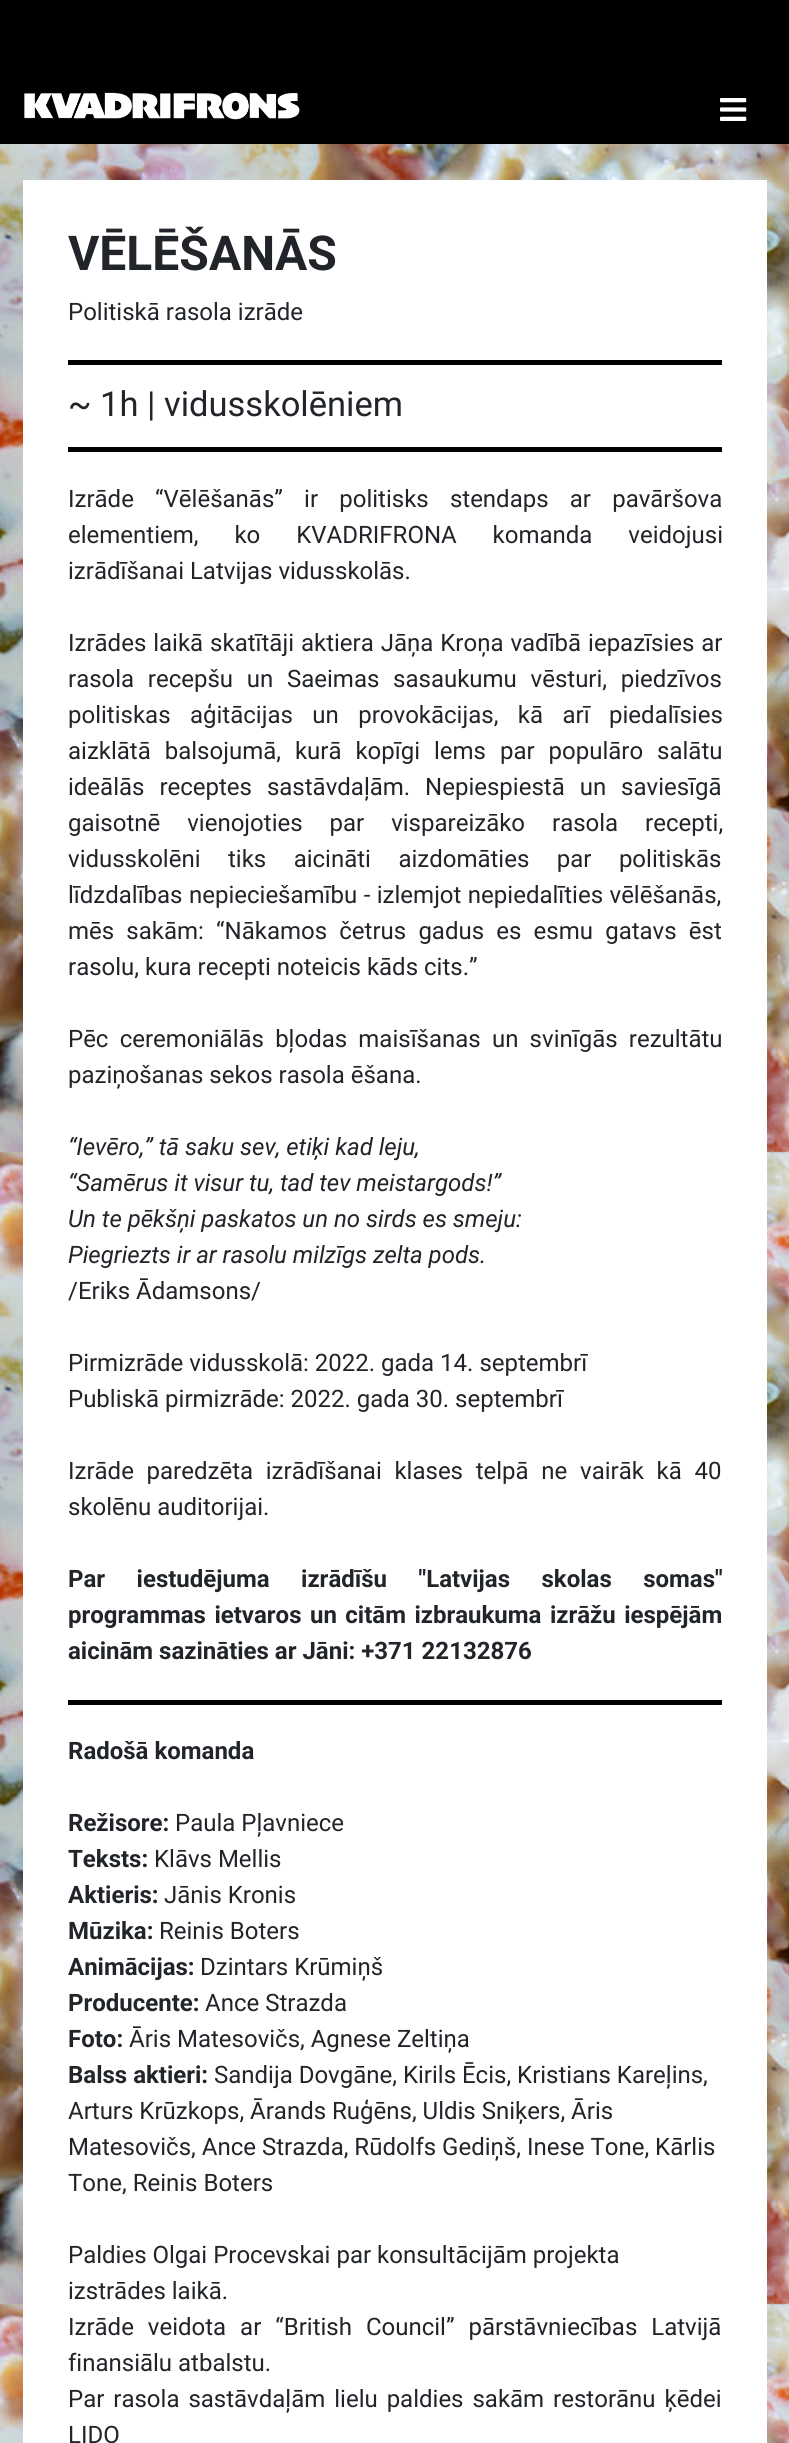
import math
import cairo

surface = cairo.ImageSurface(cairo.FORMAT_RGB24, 789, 2443)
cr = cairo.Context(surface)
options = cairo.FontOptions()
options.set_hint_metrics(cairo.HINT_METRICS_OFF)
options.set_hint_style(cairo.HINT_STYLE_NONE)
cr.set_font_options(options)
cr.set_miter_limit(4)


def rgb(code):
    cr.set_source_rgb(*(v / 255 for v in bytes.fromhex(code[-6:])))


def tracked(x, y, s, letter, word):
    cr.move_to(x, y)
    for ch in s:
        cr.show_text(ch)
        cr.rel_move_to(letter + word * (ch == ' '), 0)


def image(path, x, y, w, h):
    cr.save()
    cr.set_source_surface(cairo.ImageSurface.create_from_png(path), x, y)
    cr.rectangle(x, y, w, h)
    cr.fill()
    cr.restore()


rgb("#ffffff")
cr.paint()
image("img/1.png", 0, 144, 789, 2299)
rgb("#000000")
cr.rectangle(0, 0, 789, 144)
cr.fill()
image("img/2.png", 24, 92, 276, 28)
image("img/3.png", 720, 98, 27, 23)
for x, y, w, h, color in [
    (23, 180, 744, 2263, "#ffffff"),
    (68, 360, 654, 5, "#000000"),
    (68, 447, 654, 5, "#000000"),
    (68, 1700, 654, 5, "#000000"),
]:
    rgb(color)
    cr.rectangle(x, y, w, h)
    cr.fill()
cr.select_font_face("Roboto", cairo.FONT_SLANT_NORMAL, cairo.FONT_WEIGHT_BOLD)
cr.set_font_size(48)
rgb("#212529")
cr.move_to(68, 270)
cr.show_text("VĒLĒŠANĀS")
cr.select_font_face("Roboto")
cr.set_font_size(24)
cr.move_to(68, 320)
cr.show_text("Politiskā rasola izrāde")
cr.set_font_size(34.5)
cr.move_to(68, 416)
cr.show_text("~ 1h | vidusskolēniem")
cr.set_font_size(24)
tracked(68, 507, "Izrāde “Vēlēšanās” ir politisks stendaps ar pavāršova", 0, 15.25)
tracked(68, 543, "elementiem, ko KVADRIFRONA komanda veidojusi", 0, 30)
cr.move_to(68, 579)
cr.show_text("izrādīšanai Latvijas vidusskolās.")
tracked(68, 651, "Izrādes laikā skatītāji aktiera Jāņa Kroņa vadībā iepazīsies ar", 0, 1)
tracked(68, 687, "rasola recepšu un Saeimas sasaukumu vēsturi, piedzīvos", 0, 7.75)
tracked(68, 723, "politiskas aģitācijas un provokācijas, kā arī piedalīsies", 0, 13.5)
tracked(68, 759, "aizklātā balsojumā, kurā kopīgi lems par populāro salātu", 0, 8)
tracked(68, 795, "ideālās receptes sastāvdaļām. Nepiespiestā un saviesīgā", 0, 9)
tracked(68, 831, "gaisotnē vienojoties par vispareizāko rasola recepti,", 0, 21)
tracked(68, 867, "vidusskolēni tiks aicināti aizdomāties par politiskās", 0, 21.5)
tracked(68, 903, "līdzdalības nepieciešamību - izlemjot nepiedalīties vēlēšanās,", 0, 0.5)
tracked(68, 939, "mēs sakām: “Nākamos četrus gadus es esmu gatavs ēst", 0, 6.25)
cr.move_to(68, 975)
cr.show_text("rasolu, kura recepti noteicis kāds cits.”")
tracked(68, 1047, "Pēc ceremoniālās bļodas maisīšanas un svinīgās rezultātu", 0, 5.25)
cr.move_to(68, 1083)
cr.show_text("paziņošanas sekos rasola ēšana.")
cr.select_font_face("Roboto", cairo.FONT_SLANT_ITALIC)
for x, y, s in [
    (68, 1155, "“Ievēro,” tā saku sev, etiķi kad leju,"),
    (68, 1191, "“Samērus it visur tu, tad tev meistargods!”"),
    (68, 1227, "Un te pēkšņi paskatos un no sirds es smeju:"),
    (68, 1263, "Piegriezts ir ar rasolu milzīgs zelta pods."),
]:
    cr.move_to(x, y)
    cr.show_text(s)
cr.select_font_face("Roboto")
for x, y, s in [
    (68, 1299, "/Eriks Ādamsons/"),
    (68, 1371, "Pirmizrāde vidusskolā: 2022. gada 14. septembrī"),
    (68, 1407, "Publiskā pirmizrāde: 2022. gada 30. septembrī"),
]:
    cr.move_to(x, y)
    cr.show_text(s)
tracked(68, 1479, "Izrāde paredzēta izrādīšanai klases telpā ne vairāk kā 40", 0, 6.75)
cr.move_to(68, 1515)
cr.show_text("skolēnu auditorijai.")
cr.select_font_face("Roboto", cairo.FONT_SLANT_NORMAL, cairo.FONT_WEIGHT_BOLD)
tracked(68, 1587, "Par iestudējuma izrādīšu \"Latvijas skolas somas\"", 0, 25.5)
tracked(68, 1623, "programmas ietvaros un citām izbraukuma izrāžu iespējām", 0, 2.5)
for x, y, s in [
    (68, 1659, "aicinām sazināties ar Jāni: +371 22132876"),
    (68, 1759, "Radošā komanda"),
    (68, 1831, "Režisore:"),
]:
    cr.move_to(x, y)
    cr.show_text(s)
cr.select_font_face("Roboto")
cr.move_to(175, 1831)
cr.show_text("Paula Pļavniece")
cr.select_font_face("Roboto", cairo.FONT_SLANT_NORMAL, cairo.FONT_WEIGHT_BOLD)
cr.move_to(68, 1867)
cr.show_text("Teksts:")
cr.select_font_face("Roboto")
cr.move_to(154, 1867)
cr.show_text("Klāvs Mellis")
cr.select_font_face("Roboto", cairo.FONT_SLANT_NORMAL, cairo.FONT_WEIGHT_BOLD)
cr.move_to(68, 1903)
cr.show_text("Aktieris:")
cr.select_font_face("Roboto")
cr.move_to(164, 1903)
cr.show_text("Jānis Kronis")
cr.select_font_face("Roboto", cairo.FONT_SLANT_NORMAL, cairo.FONT_WEIGHT_BOLD)
cr.move_to(68, 1939)
cr.show_text("Mūzika:")
cr.select_font_face("Roboto")
cr.move_to(159, 1939)
cr.show_text("Reinis Boters")
cr.select_font_face("Roboto", cairo.FONT_SLANT_NORMAL, cairo.FONT_WEIGHT_BOLD)
cr.move_to(68, 1975)
cr.show_text("Animācijas:")
cr.select_font_face("Roboto")
cr.move_to(200, 1975)
cr.show_text("Dzintars Krūmiņš")
cr.select_font_face("Roboto", cairo.FONT_SLANT_NORMAL, cairo.FONT_WEIGHT_BOLD)
cr.move_to(68, 2011)
cr.show_text("Producente:")
cr.select_font_face("Roboto")
cr.move_to(205, 2011)
cr.show_text("Ance Strazda")
cr.select_font_face("Roboto", cairo.FONT_SLANT_NORMAL, cairo.FONT_WEIGHT_BOLD)
cr.move_to(68, 2047)
cr.show_text("Foto:")
cr.select_font_face("Roboto")
cr.move_to(129, 2047)
cr.show_text("Āris Matesovičs, Agnese Zeltiņa")
cr.select_font_face("Roboto", cairo.FONT_SLANT_NORMAL, cairo.FONT_WEIGHT_BOLD)
cr.move_to(68, 2083)
cr.show_text("Balss aktieri:")
cr.select_font_face("Roboto")
for x, y, s in [
    (214, 2083, "Sandija Dovgāne, Kirils Ēcis, Kristians Kareļins,"),
    (68, 2119, "Arturs Krūzkops, Ārands Ruģēns, Uldis Sniķers, Āris"),
    (68, 2155, "Matesovičs, Ance Strazda, Rūdolfs Gediņš, Inese Tone, Kārlis"),
    (68, 2191, "Tone, Reinis Boters"),
    (68, 2263, "Paldies Olgai Procevskai par konsultācijām projekta"),
    (68, 2299, "izstrādes laikā."),
]:
    cr.move_to(x, y)
    cr.show_text(s)
tracked(68, 2335, "Izrāde veidota ar “British Council” pārstāvniecības Latvijā", 0, 8)
cr.move_to(68, 2371)
cr.show_text("finansiālu atbalstu.")
tracked(68, 2407, "Par rasola sastāvdaļām lielu paldies sakām restorānu ķēdei", 0, 3)
cr.move_to(68, 2443)
cr.show_text("LIDO")
surface.write_to_png("page.png")
